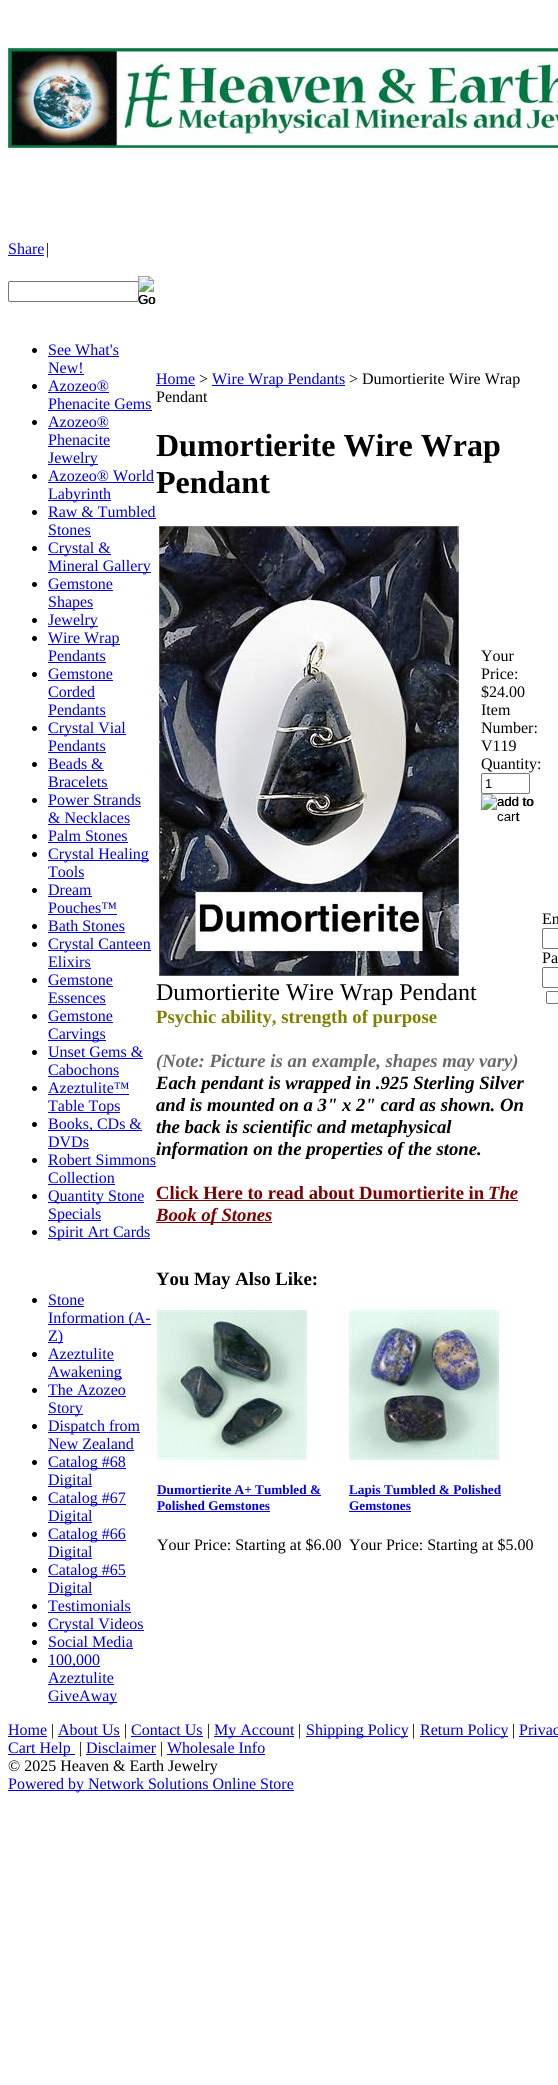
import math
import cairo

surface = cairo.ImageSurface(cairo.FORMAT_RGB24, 558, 2085)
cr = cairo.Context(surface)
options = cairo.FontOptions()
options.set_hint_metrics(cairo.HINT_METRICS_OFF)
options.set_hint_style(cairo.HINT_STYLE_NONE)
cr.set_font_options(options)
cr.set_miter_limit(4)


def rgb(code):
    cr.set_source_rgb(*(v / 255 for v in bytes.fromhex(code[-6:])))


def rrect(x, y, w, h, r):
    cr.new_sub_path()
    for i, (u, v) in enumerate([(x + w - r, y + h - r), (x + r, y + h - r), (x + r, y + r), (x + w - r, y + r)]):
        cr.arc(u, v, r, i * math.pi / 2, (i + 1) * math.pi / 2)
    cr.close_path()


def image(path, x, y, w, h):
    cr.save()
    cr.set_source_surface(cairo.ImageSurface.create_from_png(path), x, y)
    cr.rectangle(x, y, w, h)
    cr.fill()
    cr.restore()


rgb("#ffffff")
cr.paint()
image("img/1.png", 8, 48, 550, 100)
rgb("#0000ee")
cr.rectangle(8, 255, 36, 1)
cr.fill()
rrect(8.5, 281.5, 130, 20, 1.5)
rgb("#767676")
cr.set_line_width(1)
cr.stroke()
image("img/2.png", 138, 276, 18, 28)
rgb("#000000")
cr.arc(34.5, 350.5, 2.5, 0, 2 * math.pi)
cr.fill()
rgb("#0000ee")
cr.rectangle(48, 356, 71, 1)
cr.fill()
cr.rectangle(48, 374, 36, 1)
cr.fill()
rgb("#000000")
cr.arc(34.5, 386.5, 2.5, 0, 2 * math.pi)
cr.fill()
rgb("#0000ee")
cr.rectangle(48, 392, 61, 1)
cr.fill()
cr.rectangle(48, 410, 104, 1)
cr.fill()
rgb("#000000")
cr.arc(34.5, 422.5, 2.5, 0, 2 * math.pi)
cr.fill()
for x, y, w, h, color in [
    (48, 428, 61, 1, "#0000ee"),
    (48, 446, 62, 1, "#0000ee"),
    (48, 464, 50, 1, "#0000ee"),
]:
    rgb(color)
    cr.rectangle(x, y, w, h)
    cr.fill()
rgb("#000000")
cr.arc(34.5, 476.5, 2.5, 0, 2 * math.pi)
cr.fill()
rgb("#0000ee")
cr.rectangle(48, 482, 106, 1)
cr.fill()
cr.rectangle(48, 500, 63, 1)
cr.fill()
rgb("#000000")
cr.arc(34.5, 512.5, 2.5, 0, 2 * math.pi)
cr.fill()
rgb("#0000ee")
cr.rectangle(48, 518, 108, 1)
cr.fill()
cr.rectangle(48, 536, 43, 1)
cr.fill()
rgb("#000000")
cr.arc(34.5, 548.5, 2.5, 0, 2 * math.pi)
cr.fill()
rgb("#0000ee")
cr.rectangle(48, 554, 63, 1)
cr.fill()
cr.rectangle(48, 572, 103, 1)
cr.fill()
rgb("#000000")
cr.arc(34.5, 584.5, 2.5, 0, 2 * math.pi)
cr.fill()
rgb("#0000ee")
cr.rectangle(48, 590, 65, 1)
cr.fill()
cr.rectangle(48, 608, 45, 1)
cr.fill()
rgb("#000000")
cr.arc(34.5, 620.5, 2.5, 0, 2 * math.pi)
cr.fill()
rgb("#0000ee")
cr.rectangle(48, 626, 50, 1)
cr.fill()
rgb("#000000")
cr.arc(34.5, 638.5, 2.5, 0, 2 * math.pi)
cr.fill()
rgb("#0000ee")
cr.rectangle(48, 644, 72, 1)
cr.fill()
cr.rectangle(48, 662, 58, 1)
cr.fill()
rgb("#000000")
cr.arc(34.5, 674.5, 2.5, 0, 2 * math.pi)
cr.fill()
for x, y, w, h, color in [
    (48, 680, 65, 1, "#0000ee"),
    (48, 698, 47, 1, "#0000ee"),
    (48, 716, 58, 1, "#0000ee"),
]:
    rgb(color)
    cr.rectangle(x, y, w, h)
    cr.fill()
rgb("#000000")
cr.arc(34.5, 728.5, 2.5, 0, 2 * math.pi)
cr.fill()
rgb("#0000ee")
cr.rectangle(48, 734, 78, 1)
cr.fill()
cr.rectangle(48, 752, 58, 1)
cr.fill()
rgb("#000000")
cr.arc(34.5, 764.5, 2.5, 0, 2 * math.pi)
cr.fill()
rgb("#0000ee")
cr.rectangle(48, 770, 56, 1)
cr.fill()
cr.rectangle(48, 788, 60, 1)
cr.fill()
rgb("#000000")
cr.arc(34.5, 800.5, 2.5, 0, 2 * math.pi)
cr.fill()
rgb("#0000ee")
cr.rectangle(48, 806, 93, 1)
cr.fill()
cr.rectangle(48, 824, 82, 1)
cr.fill()
rgb("#000000")
cr.arc(34.5, 836.5, 2.5, 0, 2 * math.pi)
cr.fill()
rgb("#0000ee")
cr.rectangle(48, 842, 80, 1)
cr.fill()
rgb("#000000")
cr.arc(34.5, 854.5, 2.5, 0, 2 * math.pi)
cr.fill()
rgb("#0000ee")
cr.rectangle(48, 860, 101, 1)
cr.fill()
cr.rectangle(48, 878, 36, 1)
cr.fill()
rgb("#000000")
cr.arc(34.5, 890.5, 2.5, 0, 2 * math.pi)
cr.fill()
rgb("#0000ee")
cr.rectangle(48, 896, 44, 1)
cr.fill()
cr.rectangle(48, 914, 69, 1)
cr.fill()
rgb("#000000")
cr.arc(34.5, 926.5, 2.5, 0, 2 * math.pi)
cr.fill()
rgb("#0000ee")
cr.rectangle(48, 932, 77, 1)
cr.fill()
rgb("#000000")
cr.arc(34.5, 944.5, 2.5, 0, 2 * math.pi)
cr.fill()
rgb("#0000ee")
cr.rectangle(48, 950, 103, 1)
cr.fill()
cr.rectangle(48, 968, 43, 1)
cr.fill()
rgb("#000000")
cr.arc(34.5, 980.5, 2.5, 0, 2 * math.pi)
cr.fill()
rgb("#0000ee")
cr.rectangle(48, 986, 65, 1)
cr.fill()
cr.rectangle(48, 1004, 58, 1)
cr.fill()
rgb("#000000")
cr.arc(34.5, 1016.5, 2.5, 0, 2 * math.pi)
cr.fill()
rgb("#0000ee")
cr.rectangle(48, 1022, 65, 1)
cr.fill()
cr.rectangle(48, 1040, 58, 1)
cr.fill()
rgb("#000000")
cr.arc(34.5, 1052.5, 2.5, 0, 2 * math.pi)
cr.fill()
rgb("#0000ee")
cr.rectangle(48, 1058, 95, 1)
cr.fill()
cr.rectangle(48, 1076, 71, 1)
cr.fill()
rgb("#000000")
cr.arc(34.5, 1088.5, 2.5, 0, 2 * math.pi)
cr.fill()
rgb("#0000ee")
cr.rectangle(48, 1094, 81, 1)
cr.fill()
cr.rectangle(48, 1112, 72, 1)
cr.fill()
rgb("#000000")
cr.arc(34.5, 1124.5, 2.5, 0, 2 * math.pi)
cr.fill()
rgb("#0000ee")
cr.rectangle(48, 1130, 94, 1)
cr.fill()
cr.rectangle(48, 1148, 41, 1)
cr.fill()
rgb("#000000")
cr.arc(34.5, 1160.5, 2.5, 0, 2 * math.pi)
cr.fill()
rgb("#0000ee")
cr.rectangle(48, 1166, 108, 1)
cr.fill()
cr.rectangle(48, 1184, 67, 1)
cr.fill()
rgb("#000000")
cr.arc(34.5, 1196.5, 2.5, 0, 2 * math.pi)
cr.fill()
rgb("#0000ee")
cr.rectangle(48, 1202, 96, 1)
cr.fill()
cr.rectangle(48, 1220, 53, 1)
cr.fill()
rgb("#000000")
cr.arc(34.5, 1232.5, 2.5, 0, 2 * math.pi)
cr.fill()
rgb("#0000ee")
cr.rectangle(48, 1238, 102, 1)
cr.fill()
rgb("#000000")
cr.arc(34.5, 1300.5, 2.5, 0, 2 * math.pi)
cr.fill()
for x, y, w, h, color in [
    (48, 1306, 36, 1, "#0000ee"),
    (48, 1324, 103, 1, "#0000ee"),
    (48, 1342, 15, 1, "#0000ee"),
]:
    rgb(color)
    cr.rectangle(x, y, w, h)
    cr.fill()
rgb("#000000")
cr.arc(34.5, 1354.5, 2.5, 0, 2 * math.pi)
cr.fill()
rgb("#0000ee")
cr.rectangle(48, 1360, 66, 1)
cr.fill()
cr.rectangle(48, 1378, 74, 1)
cr.fill()
rgb("#000000")
cr.arc(34.5, 1390.5, 2.5, 0, 2 * math.pi)
cr.fill()
rgb("#0000ee")
cr.rectangle(48, 1396, 78, 1)
cr.fill()
cr.rectangle(48, 1414, 35, 1)
cr.fill()
rgb("#000000")
cr.arc(34.5, 1426.5, 2.5, 0, 2 * math.pi)
cr.fill()
rgb("#0000ee")
cr.rectangle(48, 1432, 92, 1)
cr.fill()
cr.rectangle(48, 1450, 86, 1)
cr.fill()
rgb("#000000")
cr.arc(34.5, 1462.5, 2.5, 0, 2 * math.pi)
cr.fill()
rgb("#0000ee")
cr.rectangle(48, 1468, 78, 1)
cr.fill()
cr.rectangle(48, 1486, 44, 1)
cr.fill()
rgb("#000000")
cr.arc(34.5, 1498.5, 2.5, 0, 2 * math.pi)
cr.fill()
rgb("#0000ee")
cr.rectangle(48, 1504, 78, 1)
cr.fill()
cr.rectangle(48, 1522, 44, 1)
cr.fill()
rgb("#000000")
cr.arc(34.5, 1534.5, 2.5, 0, 2 * math.pi)
cr.fill()
rgb("#0000ee")
cr.rectangle(48, 1540, 78, 1)
cr.fill()
cr.rectangle(48, 1558, 44, 1)
cr.fill()
rgb("#000000")
cr.arc(34.5, 1570.5, 2.5, 0, 2 * math.pi)
cr.fill()
rgb("#0000ee")
cr.rectangle(48, 1576, 78, 1)
cr.fill()
cr.rectangle(48, 1594, 44, 1)
cr.fill()
rgb("#000000")
cr.arc(34.5, 1606.5, 2.5, 0, 2 * math.pi)
cr.fill()
rgb("#0000ee")
cr.rectangle(48, 1612, 83, 1)
cr.fill()
rgb("#000000")
cr.arc(34.5, 1624.5, 2.5, 0, 2 * math.pi)
cr.fill()
rgb("#0000ee")
cr.rectangle(48, 1630, 96, 1)
cr.fill()
rgb("#000000")
cr.arc(34.5, 1642.5, 2.5, 0, 2 * math.pi)
cr.fill()
rgb("#0000ee")
cr.rectangle(48, 1648, 85, 1)
cr.fill()
rgb("#000000")
cr.arc(34.5, 1660.5, 2.5, 0, 2 * math.pi)
cr.fill()
for x, y, w, h, color in [
    (48, 1666, 52, 1, "#0000ee"),
    (48, 1684, 66, 1, "#0000ee"),
    (48, 1702, 69, 1, "#0000ee"),
    (156, 385, 39, 1, "#0000ee"),
    (212, 385, 133, 1, "#0000ee"),
]:
    rgb(color)
    cr.rectangle(x, y, w, h)
    cr.fill()
image("img/3.png", 159, 526, 300, 450)
rrect(481.5, 773.5, 48, 20, 1.5)
rgb("#767676")
cr.stroke()
image("img/4.png", 481, 794, 53, 27)
rgb("#800000")
cr.rectangle(156, 1200, 362, 1)
cr.fill()
cr.rectangle(156, 1222, 116, 1)
cr.fill()
image("img/5.png", 157, 1310, 150, 150)
rgb("#0000ee")
cr.rectangle(157, 1495, 164, 1)
cr.fill()
cr.rectangle(157, 1511, 113, 1)
cr.fill()
image("img/6.png", 349, 1310, 150, 150)
cr.rectangle(349, 1495, 152, 1)
cr.fill()
cr.rectangle(349, 1511, 62, 1)
cr.fill()
rrect(542.5, 928.5, 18, 20, 1.5)
rgb("#767676")
cr.stroke()
rrect(542.5, 967.5, 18, 20, 1.5)
cr.stroke()
rrect(546.5, 991.5, 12, 12, 1.5)
cr.stroke()
for x, y, w, h, color in [
    (8, 1736, 39, 1, "#0000ee"),
    (58, 1736, 62, 1, "#0000ee"),
    (131, 1736, 72, 1, "#0000ee"),
    (214, 1736, 80, 1, "#0000ee"),
    (306, 1736, 102, 1, "#0000ee"),
    (420, 1736, 88, 1, "#0000ee"),
    (519, 1736, 39, 1, "#0000ee"),
    (8, 1754, 67, 1, "#0000ee"),
    (86, 1754, 70, 1, "#0000ee"),
    (167, 1754, 98, 1, "#0000ee"),
    (8, 1790, 286, 1, "#0000ee"),
]:
    rgb(color)
    cr.rectangle(x, y, w, h)
    cr.fill()
cr.select_font_face("Liberation Serif")
cr.set_font_size(16)
cr.move_to(8, 254)
cr.show_text("Share")
rgb("#000000")
cr.move_to(46, 254)
cr.show_text("|")
cr.select_font_face("Liberation Sans")
cr.set_font_size(13)
cr.move_to(138, 304)
cr.show_text("Go")
cr.select_font_face("Liberation Serif")
cr.set_font_size(16)
rgb("#0000ee")
for x, y, s in [
    (48, 355, "See What's"),
    (48, 373, "New!"),
    (48, 391, "Azozeo®"),
    (48, 409, "Phenacite Gems"),
    (48, 427, "Azozeo®"),
    (48, 445, "Phenacite"),
    (48, 463, "Jewelry"),
    (48, 481, "Azozeo® World"),
    (48, 499, "Labyrinth"),
    (48, 517, "Raw & Tumbled"),
    (48, 535, "Stones"),
    (48, 553, "Crystal &"),
    (48, 571, "Mineral Gallery"),
    (48, 589, "Gemstone"),
    (48, 607, "Shapes"),
    (48, 625, "Jewelry"),
    (48, 643, "Wire Wrap"),
    (48, 661, "Pendants"),
    (48, 679, "Gemstone"),
    (48, 697, "Corded"),
    (48, 715, "Pendants"),
    (48, 733, "Crystal Vial"),
    (48, 751, "Pendants"),
    (48, 769, "Beads &"),
    (48, 787, "Bracelets"),
    (48, 805, "Power Strands"),
    (48, 823, "& Necklaces"),
    (48, 841, "Palm Stones"),
    (48, 859, "Crystal Healing"),
    (48, 877, "Tools"),
    (48, 895, "Dream"),
    (48, 913, "Pouches™"),
    (48, 931, "Bath Stones"),
    (48, 949, "Crystal Canteen"),
    (48, 967, "Elixirs"),
    (48, 985, "Gemstone"),
    (48, 1003, "Essences"),
    (48, 1021, "Gemstone"),
    (48, 1039, "Carvings"),
    (48, 1057, "Unset Gems &"),
    (48, 1075, "Cabochons"),
    (48, 1093, "Azeztulite™"),
    (48, 1111, "Table Tops"),
    (48, 1129, "Books, CDs &"),
    (48, 1147, "DVDs"),
    (48, 1165, "Robert Simmons"),
    (48, 1183, "Collection"),
    (48, 1201, "Quantity Stone"),
    (48, 1219, "Specials"),
    (48, 1237, "Spirit Art Cards"),
    (48, 1305, "Stone"),
    (48, 1323, "Information (A-"),
    (48, 1341, "Z)"),
    (48, 1359, "Azeztulite"),
    (48, 1377, "Awakening"),
    (48, 1395, "The Azozeo"),
    (48, 1413, "Story"),
    (48, 1431, "Dispatch from"),
    (48, 1449, "New Zealand"),
    (48, 1467, "Catalog #68"),
    (48, 1485, "Digital"),
    (48, 1503, "Catalog #67"),
    (48, 1521, "Digital"),
    (48, 1539, "Catalog #66"),
    (48, 1557, "Digital"),
    (48, 1575, "Catalog #65"),
    (48, 1593, "Digital"),
    (48, 1611, "Testimonials"),
    (48, 1629, "Crystal Videos"),
    (48, 1647, "Social Media"),
    (48, 1665, "100,000"),
    (48, 1683, "Azeztulite"),
    (48, 1701, "GiveAway"),
    (156, 384, "Home"),
]:
    cr.move_to(x, y)
    cr.show_text(s)
rgb("#000000")
cr.move_to(199, 384)
cr.show_text(">")
rgb("#0000ee")
cr.move_to(212, 384)
cr.show_text("Wire Wrap Pendants")
rgb("#000000")
cr.move_to(349, 384)
cr.show_text("> Dumortierite Wire Wrap")
cr.move_to(156, 402)
cr.show_text("Pendant")
cr.select_font_face("Liberation Serif", cairo.FONT_SLANT_NORMAL, cairo.FONT_WEIGHT_BOLD)
cr.set_font_size(32)
cr.move_to(156, 456)
cr.show_text("Dumortierite Wire Wrap")
cr.move_to(156, 493)
cr.show_text("Pendant")
cr.select_font_face("Liberation Serif")
cr.set_font_size(16)
for x, y, s in [
    (481, 661, "Your"),
    (481, 679, "Price:"),
    (481, 697, "$24.00"),
    (481, 715, "Item"),
    (481, 733, "Number:"),
    (481, 751, "V119"),
    (481, 769, "Quantity:"),
]:
    cr.move_to(x, y)
    cr.show_text(s)
cr.select_font_face("Liberation Sans")
cr.set_font_size(13)
for x, y, s in [
    (485, 788, "1"),
    (497, 806, "add to"),
    (516, 821, "t"),
]:
    cr.move_to(x, y)
    cr.show_text(s)
cr.select_font_face("Liberation Serif")
cr.set_font_size(24)
cr.move_to(156, 1000)
cr.show_text("Dumortierite Wire Wrap Pendant")
cr.select_font_face("Liberation Serif", cairo.FONT_SLANT_NORMAL, cairo.FONT_WEIGHT_BOLD)
cr.set_font_size(18.7)
rgb("#808000")
cr.move_to(156, 1023)
cr.show_text("Psychic ability, strength of purpose")
cr.select_font_face("Liberation Serif", cairo.FONT_SLANT_ITALIC, cairo.FONT_WEIGHT_BOLD)
rgb("#696969")
cr.move_to(156, 1067)
cr.show_text("(Note: Picture is an example, shapes may vary)")
rgb("#000000")
for x, y, s in [
    (156, 1089, "Each pendant is wrapped in .925 Sterling Silver"),
    (156, 1111, "and is mounted on a 3\" x 2\" card as shown. On"),
    (156, 1133, "the back is scientific and metaphysical"),
    (156, 1155, "information on the properties of the stone."),
]:
    cr.move_to(x, y)
    cr.show_text(s)
cr.select_font_face("Liberation Serif", cairo.FONT_SLANT_NORMAL, cairo.FONT_WEIGHT_BOLD)
rgb("#800000")
cr.move_to(156, 1199)
cr.show_text("Click Here to read about Dumortierite in")
cr.select_font_face("Liberation Serif", cairo.FONT_SLANT_ITALIC, cairo.FONT_WEIGHT_BOLD)
cr.move_to(488, 1199)
cr.show_text("The")
cr.move_to(156, 1221)
cr.show_text("Book of Stones")
cr.select_font_face("Liberation Serif", cairo.FONT_SLANT_NORMAL, cairo.FONT_WEIGHT_BOLD)
cr.set_font_size(18.75)
rgb("#000000")
cr.move_to(156, 1285)
cr.show_text("You May Also Like:")
cr.set_font_size(13.25)
rgb("#0000ee")
cr.move_to(157, 1494)
cr.show_text("Dumortierite A+ Tumbled &")
cr.move_to(157, 1510)
cr.show_text("Polished Gemstones")
cr.select_font_face("Liberation Serif")
cr.set_font_size(16)
rgb("#000000")
cr.move_to(157, 1550)
cr.show_text("Your Price: Starting at $6.00")
cr.select_font_face("Liberation Serif", cairo.FONT_SLANT_NORMAL, cairo.FONT_WEIGHT_BOLD)
cr.set_font_size(13.25)
rgb("#0000ee")
cr.move_to(349, 1494)
cr.show_text("Lapis Tumbled & Polished")
cr.move_to(349, 1510)
cr.show_text("Gemstones")
cr.select_font_face("Liberation Serif")
cr.set_font_size(16)
rgb("#000000")
for x, y, s in [
    (349, 1550, "Your Price: Starting at $5.00"),
    (542, 924, "Em"),
    (542, 963, "Pa"),
]:
    cr.move_to(x, y)
    cr.show_text(s)
rgb("#0000ee")
cr.move_to(8, 1735)
cr.show_text("Home")
rgb("#000000")
cr.move_to(51, 1735)
cr.show_text("|")
rgb("#0000ee")
cr.move_to(58, 1735)
cr.show_text("About Us")
rgb("#000000")
cr.move_to(124, 1735)
cr.show_text("|")
rgb("#0000ee")
cr.move_to(131, 1735)
cr.show_text("Contact Us")
rgb("#000000")
cr.move_to(207, 1735)
cr.show_text("|")
rgb("#0000ee")
cr.move_to(214, 1735)
cr.show_text("My Account")
rgb("#000000")
cr.move_to(298, 1735)
cr.show_text("|")
rgb("#0000ee")
cr.move_to(306, 1735)
cr.show_text("Shipping Policy")
rgb("#000000")
cr.move_to(412, 1735)
cr.show_text("|")
rgb("#0000ee")
cr.move_to(420, 1735)
cr.show_text("Return Policy")
rgb("#000000")
cr.move_to(512, 1735)
cr.show_text("|")
rgb("#0000ee")
cr.move_to(519, 1735)
cr.show_text("Privac")
cr.move_to(8, 1753)
cr.show_text("Cart Help")
rgb("#000000")
cr.move_to(79, 1753)
cr.show_text("|")
rgb("#0000ee")
cr.move_to(86, 1753)
cr.show_text("Disclaimer")
rgb("#000000")
cr.move_to(160, 1753)
cr.show_text("|")
rgb("#0000ee")
cr.move_to(167, 1753)
cr.show_text("Wholesale Info")
rgb("#000000")
cr.move_to(8, 1771)
cr.show_text("© 2025 Heaven & Earth Jewelry")
rgb("#0000ee")
cr.move_to(8, 1789)
cr.show_text("Powered by Network Solutions Online Store")
surface.write_to_png("page.png")
